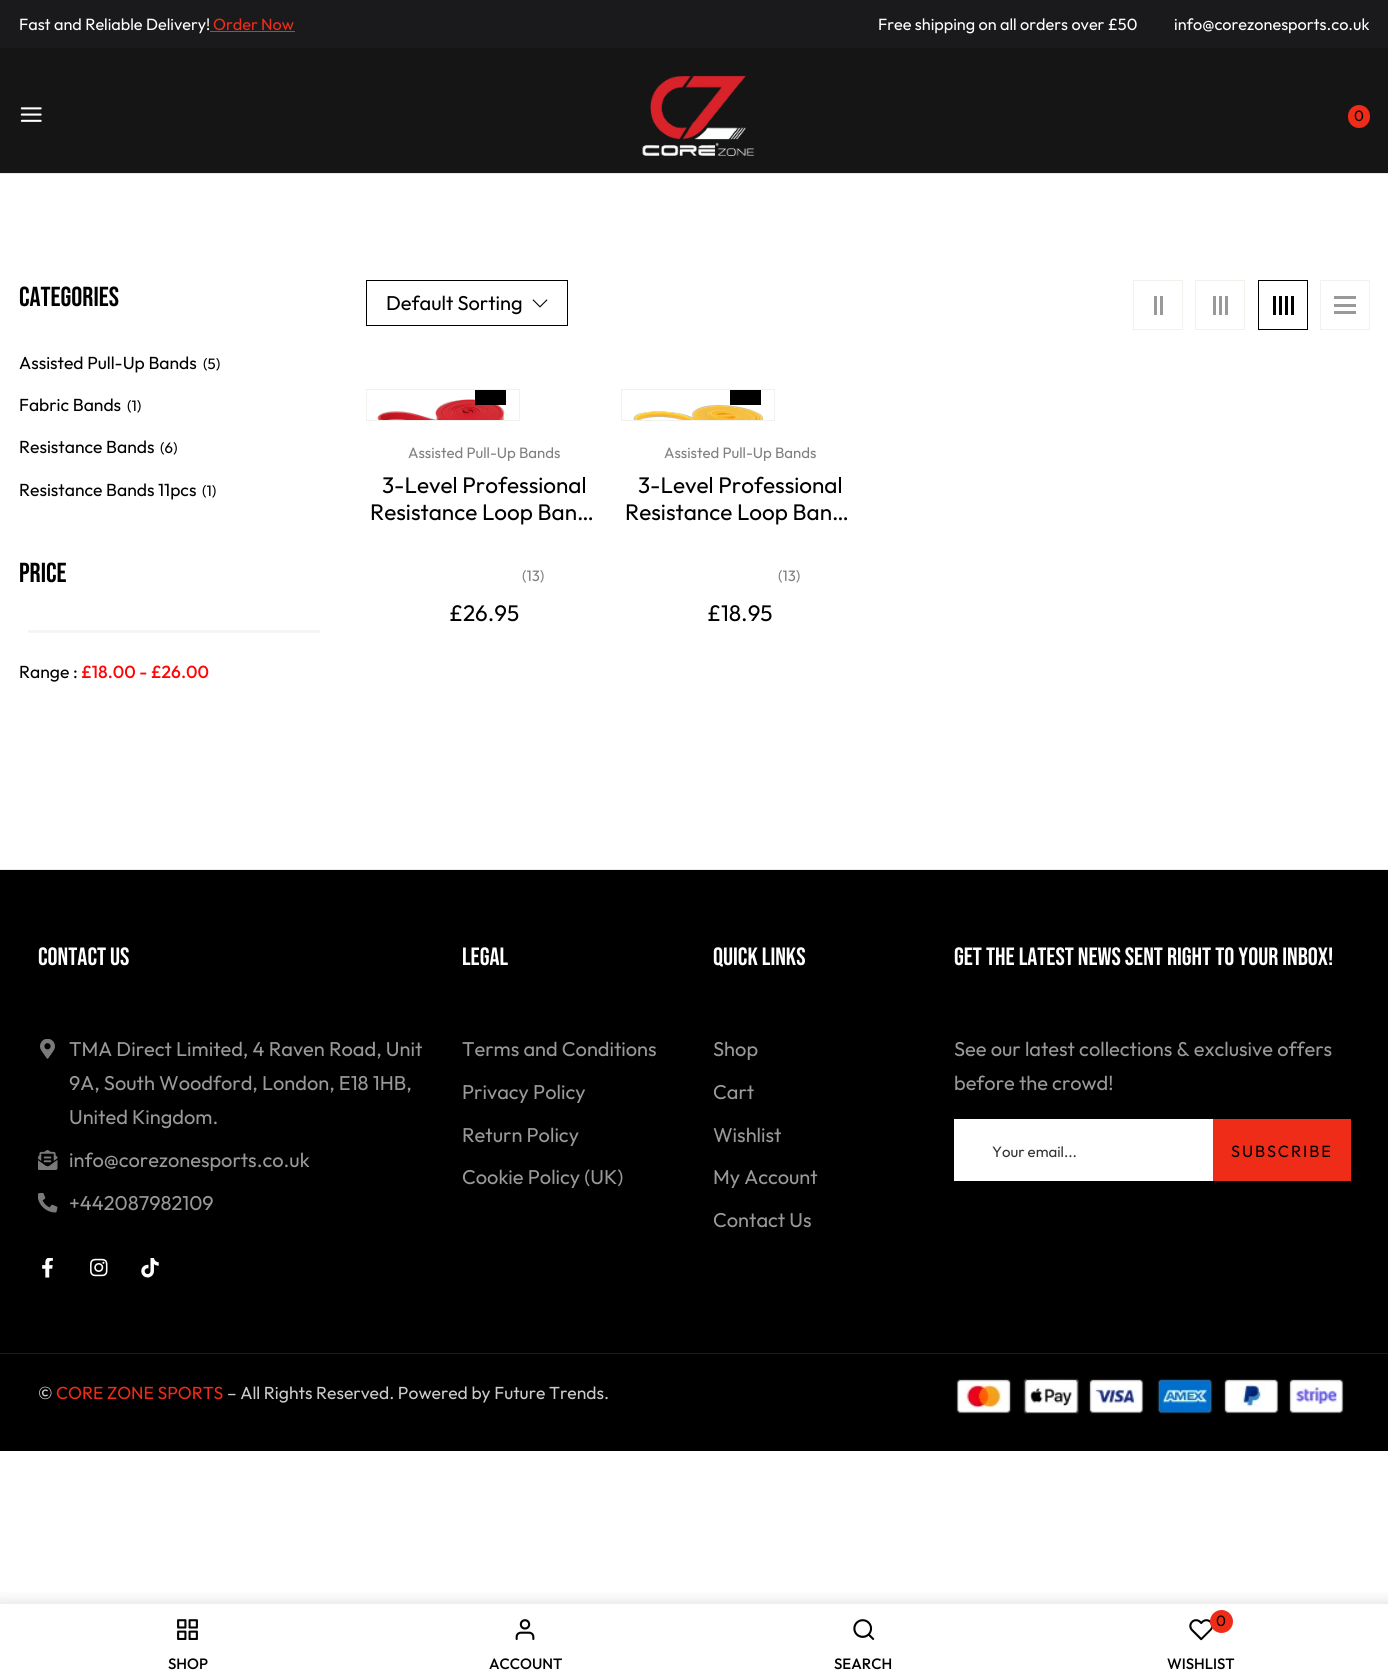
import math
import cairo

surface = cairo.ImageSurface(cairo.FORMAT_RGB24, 1388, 1677)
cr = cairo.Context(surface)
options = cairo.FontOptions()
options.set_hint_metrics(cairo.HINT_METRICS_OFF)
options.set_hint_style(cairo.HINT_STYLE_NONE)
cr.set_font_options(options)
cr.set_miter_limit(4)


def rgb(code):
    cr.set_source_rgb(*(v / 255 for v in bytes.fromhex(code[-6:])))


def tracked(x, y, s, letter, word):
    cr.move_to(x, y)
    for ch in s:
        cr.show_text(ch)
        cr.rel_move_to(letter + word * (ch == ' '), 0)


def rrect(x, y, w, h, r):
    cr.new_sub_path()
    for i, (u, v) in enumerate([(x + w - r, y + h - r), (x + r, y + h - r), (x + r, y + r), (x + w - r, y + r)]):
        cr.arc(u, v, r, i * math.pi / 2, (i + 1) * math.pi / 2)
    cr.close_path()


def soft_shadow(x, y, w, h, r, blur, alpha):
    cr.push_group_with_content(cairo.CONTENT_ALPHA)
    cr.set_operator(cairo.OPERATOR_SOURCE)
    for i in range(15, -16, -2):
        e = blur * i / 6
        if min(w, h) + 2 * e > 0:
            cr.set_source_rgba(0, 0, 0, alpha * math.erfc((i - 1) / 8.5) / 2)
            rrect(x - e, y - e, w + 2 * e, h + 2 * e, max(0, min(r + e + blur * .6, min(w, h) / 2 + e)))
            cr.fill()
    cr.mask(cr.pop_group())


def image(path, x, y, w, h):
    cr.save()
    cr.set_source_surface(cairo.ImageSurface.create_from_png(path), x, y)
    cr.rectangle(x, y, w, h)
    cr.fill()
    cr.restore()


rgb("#ffffff")
cr.paint()
for x, y, w, h, color in [
    (0, 0, 1388, 48, "#1a1a1c"),
    (210, 31, 85, 1, "#ef2c18"),
    (0, 48, 1388, 125, "#151515"),
]:
    rgb(color)
    cr.rectangle(x, y, w, h)
    cr.fill()
image("img/1.png", 20, 107, 22, 15)
image("img/2.png", 642, 75, 113, 81)
rgb("#ef2c18")
rrect(1348, 105, 22, 23, 11)
cr.fill()
cr.save()
cr.rectangle(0, 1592, 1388, 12)
cr.clip()
rgb("#8f8f8f")
soft_shadow(-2, 1603, 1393, 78, 0, 7.5, 0.3)
cr.restore()
image("img/3.png", 177, 1619, 21, 21)
image("img/4.png", 515, 1619, 20, 21)
image("img/5.png", 853, 1619, 22, 21)
image("img/6.png", 1189, 1619, 24, 22)
cr.arc(1221.5, 1621.5, 11.5, 0, 2 * math.pi)
cr.fill()
rgb("#e9e9e9")
cr.rectangle(0, 173, 1388, 1)
cr.fill()
rgb("#f5f5f5")
cr.rectangle(28, 630, 292, 3)
cr.fill()
cr.rectangle(366.5, 280.5, 201, 45)
rgb("#000000")
cr.set_line_width(1)
cr.stroke()
image("img/7.png", 532, 299, 16, 9)
cr.rectangle(1133.5, 280.5, 49, 49)
rgb("#f2f2ed")
cr.stroke()
rgb("#999999")
cr.rectangle(1154, 296, 3, 19)
cr.fill()
cr.rectangle(1160, 296, 3, 19)
cr.fill()
cr.rectangle(1195.5, 280.5, 49, 49)
rgb("#f2f2ed")
cr.stroke()
for x, y, w, h, color in [
    (1213, 296, 3, 19, "#999999"),
    (1219, 296, 3, 19, "#999999"),
    (1225, 296, 3, 19, "#999999"),
]:
    rgb(color)
    cr.rectangle(x, y, w, h)
    cr.fill()
cr.rectangle(1258.5, 280.5, 49, 49)
rgb("#000000")
cr.stroke()
for x, y, w, h, color in [
    (1273, 296, 3, 19, "#000000"),
    (1279, 296, 3, 19, "#000000"),
    (1285, 296, 3, 19, "#000000"),
    (1291, 296, 3, 19, "#000000"),
]:
    rgb(color)
    cr.rectangle(x, y, w, h)
    cr.fill()
cr.rectangle(1320.5, 280.5, 49, 49)
rgb("#f2f2ed")
cr.stroke()
for x, y, w, h, color in [
    (1334, 296, 22, 3, "#999999"),
    (1334, 304, 22, 3, "#999999"),
    (1334, 311, 22, 3, "#999999"),
]:
    rgb(color)
    cr.rectangle(x, y, w, h)
    cr.fill()
cr.rectangle(366.5, 389.5, 153, 31)
rgb("#f2f2ed")
cr.stroke()
image("img/8.png", 377, 399, 128, 21)
rgb("#000000")
cr.rectangle(475, 390, 31, 15)
cr.fill()
cr.rectangle(621.5, 389.5, 153, 31)
rgb("#f2f2ed")
cr.stroke()
rgb("#000000")
cr.rectangle(730, 390, 31, 15)
cr.fill()
image("img/9.png", 633, 405, 130, 15)
for x, y, w, h, color in [
    (0, 869, 1388, 1, "#e9e9e9"),
    (0, 870, 1388, 483, "#000000"),
    (0, 1353, 1388, 1, "#1a1a1a"),
]:
    rgb(color)
    cr.rectangle(x, y, w, h)
    cr.fill()
image("img/10.png", 40, 1039, 15, 20)
image("img/11.png", 38, 1150, 20, 20)
image("img/12.png", 38, 1193, 20, 20)
image("img/13.png", 42, 1258, 11, 20)
image("img/14.png", 90, 1258, 18, 19)
image("img/15.png", 141, 1258, 18, 20)
for x, y, w, h, color in [
    (954, 1119, 259, 62, "#ffffff"),
    (1213, 1119, 138, 62, "#ef2c18"),
    (0, 1354, 1388, 97, "#000000"),
]:
    rgb(color)
    cr.rectangle(x, y, w, h)
    cr.fill()
image("img/16.png", 956, 1378, 388, 36)
cr.select_font_face("Outfit")
cr.set_font_size(16.25)
rgb("#ffffff")
cr.move_to(19, 30)
cr.show_text("Fast and Reliable Delivery!")
rgb("#ef2c18")
cr.move_to(213, 30)
cr.show_text("Order Now")
rgb("#ffffff")
cr.move_to(878, 30)
cr.show_text("Free shipping on all orders over £50")
cr.move_to(1174, 30)
cr.show_text("info@corezonesports.co.uk")
cr.set_font_size(15)
rgb("#000000")
cr.move_to(1354, 121)
cr.show_text("0")
cr.select_font_face("Outfit Medium")
for x, y, s in [
    (168, 1669, "SHOP"),
    (489, 1669, "ACCOUNT"),
    (834, 1669, "SEARCH"),
]:
    cr.move_to(x, y)
    cr.show_text(s)
cr.select_font_face("Outfit")
cr.move_to(1216, 1626)
cr.show_text("0")
cr.select_font_face("Outfit Medium")
cr.move_to(1167, 1669)
cr.show_text("WISHLIST")
cr.select_font_face("Bebas Neue")
cr.set_font_size(27.5)
cr.move_to(19, 306)
cr.show_text("Categories")
cr.select_font_face("Outfit")
cr.set_font_size(17.5)
cr.move_to(19, 369)
cr.show_text("Assisted Pull-Up Bands")
cr.set_font_size(15)
cr.move_to(203, 369)
cr.show_text("(5)")
cr.set_font_size(17.5)
cr.move_to(19, 411)
cr.show_text("Fabric Bands")
cr.set_font_size(15)
cr.move_to(127, 411)
cr.show_text("(1)")
cr.set_font_size(17.5)
cr.move_to(19, 453)
cr.show_text("Resistance Bands")
cr.set_font_size(15)
cr.move_to(160, 453)
cr.show_text("(6)")
cr.set_font_size(17.5)
cr.move_to(19, 496)
cr.show_text("Resistance Bands 11pcs")
cr.set_font_size(15)
cr.move_to(202, 496)
cr.show_text("(1)")
cr.select_font_face("Bebas Neue")
cr.set_font_size(27.5)
cr.move_to(19, 582)
cr.show_text("Price")
cr.select_font_face("Outfit")
cr.set_font_size(17.5)
cr.move_to(19, 678)
cr.show_text("Range :")
cr.select_font_face("Outfit Medium")
rgb("#ff0505")
cr.move_to(81, 678)
cr.show_text("£18.00 - £26.00")
cr.select_font_face("Outfit")
cr.set_font_size(20)
rgb("#000000")
cr.move_to(386, 310)
cr.show_text("Default Sorting")
cr.set_font_size(15)
rgb("#808080")
cr.move_to(408, 458)
cr.show_text("Assisted Pull-Up Bands")
cr.set_font_size(22.5)
rgb("#000000")
cr.move_to(382, 493)
cr.show_text("3-Level Professional")
cr.move_to(370, 520)
cr.show_text("Resistance Loop Ban…")
cr.set_font_size(15)
rgb("#808080")
cr.move_to(522, 581)
cr.show_text("(13)")
cr.set_font_size(22.5)
rgb("#000000")
cr.move_to(449, 621)
cr.show_text("£26.95")
cr.set_font_size(15)
rgb("#808080")
cr.move_to(664, 458)
cr.show_text("Assisted Pull-Up Bands")
cr.set_font_size(22.5)
rgb("#000000")
cr.move_to(638, 493)
cr.show_text("3-Level Professional")
cr.move_to(625, 520)
cr.show_text("Resistance Loop Ban…")
cr.set_font_size(15)
rgb("#808080")
cr.move_to(778, 581)
cr.show_text("(13)")
cr.set_font_size(22.5)
rgb("#000000")
cr.move_to(707, 621)
cr.show_text("£18.95")
cr.select_font_face("Bebas Neue")
cr.set_font_size(25)
rgb("#ffffff")
cr.move_to(38, 965)
cr.show_text("CONTACT US")
cr.select_font_face("Outfit")
cr.set_font_size(20)
rgb("#999999")
for x, y, s in [
    (69, 1056, "TMA Direct Limited, 4 Raven Road, Unit"),
    (69, 1090, "9A, South Woodford, London, E18 1HB,"),
    (69, 1124, "United Kingdom."),
    (69, 1167, "info@corezonesports.co.uk"),
    (69, 1210, "+442087982109"),
]:
    cr.move_to(x, y)
    cr.show_text(s)
cr.select_font_face("Bebas Neue")
cr.set_font_size(25)
rgb("#ffffff")
cr.move_to(462, 965)
cr.show_text("Legal")
cr.select_font_face("Outfit")
cr.set_font_size(20)
rgb("#999999")
for x, y, s in [
    (462, 1056, "Terms and Conditions"),
    (462, 1099, "Privacy Policy"),
    (462, 1142, "Return Policy"),
    (462, 1184, "Cookie Policy (UK)"),
]:
    cr.move_to(x, y)
    cr.show_text(s)
cr.select_font_face("Bebas Neue")
cr.set_font_size(25)
rgb("#ffffff")
cr.move_to(713, 965)
cr.show_text("Quick Links")
cr.select_font_face("Outfit")
cr.set_font_size(20)
rgb("#999999")
for x, y, s in [
    (713, 1056, "Shop"),
    (713, 1099, "Cart"),
    (713, 1142, "Wishlist"),
    (713, 1184, "My Account"),
    (713, 1227, "Contact Us"),
]:
    cr.move_to(x, y)
    cr.show_text(s)
cr.select_font_face("Bebas Neue")
cr.set_font_size(25)
rgb("#ffffff")
cr.move_to(954, 965)
cr.show_text("GET THE LATEST NEWS SENT RIGHT TO YOUR INBOX!")
cr.select_font_face("Outfit")
cr.set_font_size(20)
rgb("#999999")
cr.move_to(954, 1056)
cr.show_text("See our latest collections & exclusive offers")
cr.move_to(954, 1090)
cr.show_text("before the crowd!")
cr.set_font_size(15)
rgb("#333333")
cr.move_to(992, 1157)
cr.show_text("Your email...")
cr.set_font_size(16.25)
rgb("#000000")
tracked(1231, 1157, "SUBSCRIBE", 1.9, 0)
cr.set_font_size(17.5)
rgb("#cccccc")
cr.move_to(38, 1399)
cr.show_text("©")
rgb("#ef2c18")
cr.move_to(56, 1399)
cr.show_text("CORE ZONE SPORTS")
rgb("#cccccc")
cr.move_to(227, 1399)
cr.show_text("– All Rights Reserved. Powered by Future Trends.")
surface.write_to_png("page.png")
